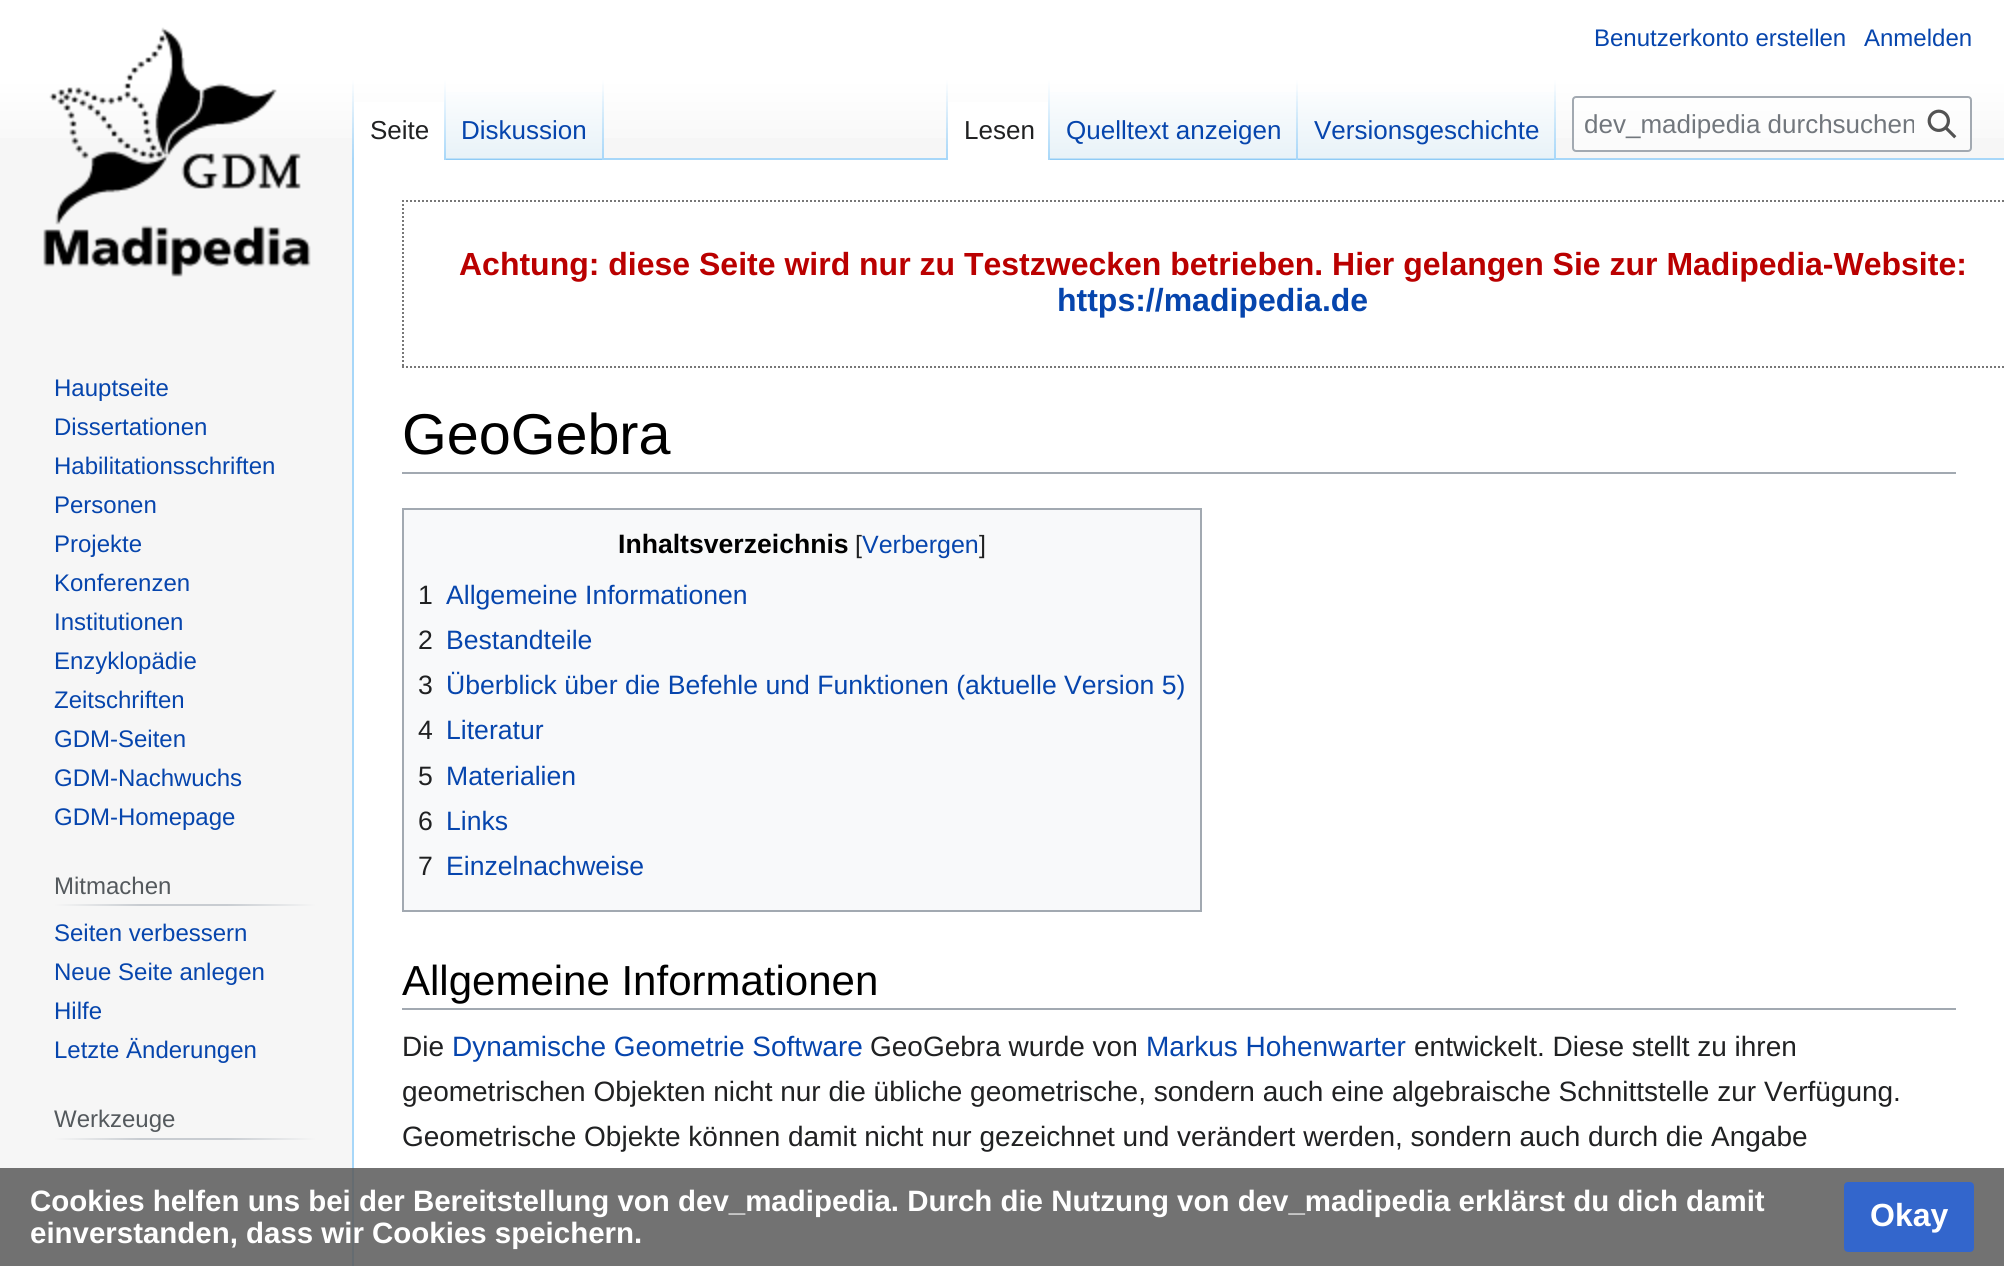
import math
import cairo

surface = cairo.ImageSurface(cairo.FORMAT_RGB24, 2004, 1266)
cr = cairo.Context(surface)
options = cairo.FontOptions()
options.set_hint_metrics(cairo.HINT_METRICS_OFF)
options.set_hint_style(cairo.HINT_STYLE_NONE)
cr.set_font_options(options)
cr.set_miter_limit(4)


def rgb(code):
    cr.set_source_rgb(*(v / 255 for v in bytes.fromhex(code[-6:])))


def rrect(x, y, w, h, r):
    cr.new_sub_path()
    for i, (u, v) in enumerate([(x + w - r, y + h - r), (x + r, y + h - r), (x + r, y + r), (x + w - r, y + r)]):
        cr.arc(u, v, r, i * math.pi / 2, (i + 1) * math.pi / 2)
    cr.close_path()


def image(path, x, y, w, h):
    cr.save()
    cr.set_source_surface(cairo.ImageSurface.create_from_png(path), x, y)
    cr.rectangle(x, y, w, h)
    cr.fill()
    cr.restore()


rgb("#f6f6f6")
cr.paint()
gradient = cairo.LinearGradient(1002, 0, 1002, 160)
gradient.add_color_stop_rgba(0.5, 1, 1, 1, 1)
gradient.add_color_stop_rgba(1, 0.965, 0.965, 0.965, 1)
cr.set_source(gradient)
cr.rectangle(0, 0, 2004, 138)
cr.fill()
rgb("#a7d7f9")
cr.rectangle(352, 158, 2, 1108)
cr.fill()
gradient = cairo.LinearGradient(353, 80, 353, 160)
gradient.add_color_stop_rgba(0, 0.655, 0.843, 0.976, 0)
gradient.add_color_stop_rgba(1, 0.655, 0.843, 0.976, 1)
cr.set_source(gradient)
cr.rectangle(352, 80, 2, 80)
cr.fill()
rgb("#ffffff")
cr.rectangle(354, 102, 90, 58)
cr.fill()
gradient = cairo.LinearGradient(445, 80, 445, 160)
gradient.add_color_stop_rgba(0, 1, 1, 1, 1)
gradient.add_color_stop_rgba(1, 0.655, 0.843, 0.976, 1)
cr.set_source(gradient)
cr.rectangle(444, 80, 2, 80)
cr.fill()
gradient = cairo.LinearGradient(525, 160, 525, 80)
gradient.add_color_stop_rgba(0, 0.467, 0.757, 0.965, 1)
gradient.add_color_stop_rgba(0.03, 0.91, 0.949, 0.973, 1)
gradient.add_color_stop_rgba(1, 1, 1, 1, 1)
cr.set_source(gradient)
cr.rectangle(446, 92, 158, 68)
cr.fill()
gradient = cairo.LinearGradient(603, 80, 603, 160)
gradient.add_color_stop_rgba(0, 0.655, 0.843, 0.976, 0)
gradient.add_color_stop_rgba(1, 0.655, 0.843, 0.976, 1)
cr.set_source(gradient)
cr.rectangle(602, 80, 2, 80)
cr.fill()
rgb("#a7d7f9")
cr.rectangle(604, 158, 1400, 2)
cr.fill()
gradient = cairo.LinearGradient(947, 80, 947, 160)
gradient.add_color_stop_rgba(0, 0.655, 0.843, 0.976, 0)
gradient.add_color_stop_rgba(1, 0.655, 0.843, 0.976, 1)
cr.set_source(gradient)
cr.rectangle(946, 80, 2, 80)
cr.fill()
rgb("#ffffff")
cr.rectangle(948, 102, 100, 58)
cr.fill()
gradient = cairo.LinearGradient(1049, 80, 1049, 160)
gradient.add_color_stop_rgba(0, 1, 1, 1, 1)
gradient.add_color_stop_rgba(1, 0.655, 0.843, 0.976, 1)
cr.set_source(gradient)
cr.rectangle(1048, 80, 2, 80)
cr.fill()
gradient = cairo.LinearGradient(1174, 160, 1174, 80)
gradient.add_color_stop_rgba(0, 0.467, 0.757, 0.965, 1)
gradient.add_color_stop_rgba(0.03, 0.91, 0.949, 0.973, 1)
gradient.add_color_stop_rgba(1, 1, 1, 1, 1)
cr.set_source(gradient)
cr.rectangle(1050, 92, 248, 68)
cr.fill()
gradient = cairo.LinearGradient(1297, 80, 1297, 160)
gradient.add_color_stop_rgba(0, 0.655, 0.843, 0.976, 0)
gradient.add_color_stop_rgba(1, 0.655, 0.843, 0.976, 1)
cr.set_source(gradient)
cr.rectangle(1296, 80, 2, 80)
cr.fill()
gradient = cairo.LinearGradient(1427, 160, 1427, 80)
gradient.add_color_stop_rgba(0, 0.467, 0.757, 0.965, 1)
gradient.add_color_stop_rgba(0.03, 0.91, 0.949, 0.973, 1)
gradient.add_color_stop_rgba(1, 1, 1, 1, 1)
cr.set_source(gradient)
cr.rectangle(1298, 92, 258, 68)
cr.fill()
gradient = cairo.LinearGradient(1555, 80, 1555, 160)
gradient.add_color_stop_rgba(0, 0.655, 0.843, 0.976, 0)
gradient.add_color_stop_rgba(1, 0.655, 0.843, 0.976, 1)
cr.set_source(gradient)
cr.rectangle(1554, 80, 2, 80)
cr.fill()
cr.set_source_rgba(1, 1, 1, 0.5)
rrect(1573, 97, 398, 54, 3)
cr.fill_preserve()
rgb("#a2a9b1")
cr.stroke()
image("img/1.png", 1927, 109, 30, 30)
image("img/2.png", 43, 27, 268, 250)
gradient = cairo.LinearGradient(54, 905, 316, 905)
gradient.add_color_stop_rgba(0, 0.965, 0.965, 0.965, 1)
gradient.add_color_stop_rgba(0.33, 0.784, 0.8, 0.82, 1)
gradient.add_color_stop_rgba(0.66, 0.784, 0.8, 0.82, 1)
gradient.add_color_stop_rgba(1, 0.965, 0.965, 0.965, 1)
cr.set_source(gradient)
cr.rectangle(54, 904, 262, 2)
cr.fill()
gradient = cairo.LinearGradient(54, 1139, 316, 1139)
gradient.add_color_stop_rgba(0, 0.965, 0.965, 0.965, 1)
gradient.add_color_stop_rgba(0.33, 0.784, 0.8, 0.82, 1)
gradient.add_color_stop_rgba(0.66, 0.784, 0.8, 0.82, 1)
gradient.add_color_stop_rgba(1, 0.965, 0.965, 0.965, 1)
cr.set_source(gradient)
cr.rectangle(54, 1138, 262, 2)
cr.fill()
rgb("#ffffff")
cr.rectangle(354, 160, 1650, 1106)
cr.fill()
cr.new_path()
cr.move_to(402, 201)
cr.line_to(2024, 201)
rgb("#777777")
cr.set_dash([2, 2])
cr.stroke()
cr.new_path()
cr.move_to(402, 367)
cr.line_to(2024, 367)
cr.stroke()
cr.new_path()
cr.move_to(403, 200)
cr.line_to(403, 368)
cr.stroke()
rgb("#a2a9b1")
cr.rectangle(402, 472, 1554, 2)
cr.fill()
rgb("#f8f9fa")
cr.rectangle(403, 509, 798, 402)
cr.fill_preserve()
rgb("#a2a9b1")
cr.set_dash([])
cr.stroke()
cr.rectangle(402, 1008, 1554, 2)
cr.fill()
cr.set_source_rgba(0.353, 0.353, 0.353, 0.85)
cr.rectangle(0, 1168, 2004, 98)
cr.fill()
rgb("#3366cc")
rrect(1845, 1183, 128, 68, 3)
cr.fill_preserve()
cr.stroke()
cr.select_font_face("Liberation Sans")
cr.set_font_size(24)
rgb("#0645ad")
cr.move_to(1594, 46)
cr.show_text("Benutzerkonto erstellen")
cr.move_to(1864, 46)
cr.show_text("Anmelden")
cr.set_font_size(26)
rgb("#202122")
cr.move_to(370, 139)
cr.show_text("Seite")
rgb("#0645ad")
cr.move_to(461, 139)
cr.show_text("Diskussion")
rgb("#202122")
cr.move_to(964, 139)
cr.show_text("Lesen")
rgb("#0645ad")
cr.move_to(1066, 139)
cr.show_text("Quelltext anzeigen")
cr.move_to(1314, 139)
cr.show_text("Versionsgeschichte")
cr.save()
cr.rectangle(1584, 110, 330, 30)
cr.clip()
rgb("#72777d")
cr.move_to(1584, 133)
cr.show_text("dev_madipedia durchsuchen")
cr.restore()
cr.set_font_size(24)
for x, y, s in [
    (54, 396, "Hauptseite"),
    (54, 435, "Dissertationen"),
    (54, 474, "Habilitationsschriften"),
    (54, 513, "Personen"),
    (54, 552, "Projekte"),
    (54, 591, "Konferenzen"),
    (54, 630, "Institutionen"),
    (54, 669, "Enzyklopädie"),
    (54, 708, "Zeitschriften"),
    (54, 747, "GDM-Seiten"),
    (54, 786, "GDM-Nachwuchs"),
    (54, 825, "GDM-Homepage"),
]:
    cr.move_to(x, y)
    cr.show_text(s)
rgb("#54595d")
cr.move_to(54, 894)
cr.show_text("Mitmachen")
rgb("#0645ad")
for x, y, s in [
    (54, 941, "Seiten verbessern"),
    (54, 980, "Neue Seite anlegen"),
    (54, 1019, "Hilfe"),
    (54, 1058, "Letzte Änderungen"),
]:
    cr.move_to(x, y)
    cr.show_text(s)
rgb("#54595d")
cr.move_to(54, 1127)
cr.show_text("Werkzeuge")
cr.select_font_face("Liberation Sans", cairo.FONT_SLANT_NORMAL, cairo.FONT_WEIGHT_BOLD)
cr.set_font_size(32)
rgb("#ba0000")
cr.move_to(459, 275)
cr.show_text("Achtung: diese Seite wird nur zu Testzwecken betrieben. Hier gelangen Sie zur Madipedia-Website:")
rgb("#0645ad")
cr.move_to(1057, 311)
cr.show_text("https://madipedia.de")
cr.select_font_face("Liberation Sans")
cr.set_font_size(57.5)
rgb("#000000")
cr.move_to(402, 454)
cr.show_text("GeoGebra")
cr.select_font_face("Liberation Sans", cairo.FONT_SLANT_NORMAL, cairo.FONT_WEIGHT_BOLD)
cr.set_font_size(26.6)
cr.move_to(618, 553)
cr.show_text("Inhaltsverzeichnis")
cr.select_font_face("Liberation Sans")
cr.set_font_size(25)
rgb("#202122")
cr.move_to(855, 553)
cr.show_text("[")
rgb("#0645ad")
cr.move_to(862, 553)
cr.show_text("Verbergen")
rgb("#202122")
cr.move_to(979, 553)
cr.show_text("]")
cr.set_font_size(26.6)
cr.move_to(418, 604)
cr.show_text("1")
rgb("#0645ad")
cr.move_to(446, 604)
cr.show_text("Allgemeine Informationen")
rgb("#202122")
cr.move_to(418, 649)
cr.show_text("2")
rgb("#0645ad")
cr.move_to(446, 649)
cr.show_text("Bestandteile")
rgb("#202122")
cr.move_to(418, 694)
cr.show_text("3")
rgb("#0645ad")
cr.move_to(446, 694)
cr.show_text("Überblick über die Befehle und Funktionen (aktuelle Version 5)")
rgb("#202122")
cr.move_to(418, 739)
cr.show_text("4")
rgb("#0645ad")
cr.move_to(446, 739)
cr.show_text("Literatur")
rgb("#202122")
cr.move_to(418, 785)
cr.show_text("5")
rgb("#0645ad")
cr.move_to(446, 785)
cr.show_text("Materialien")
rgb("#202122")
cr.move_to(418, 830)
cr.show_text("6")
rgb("#0645ad")
cr.move_to(446, 830)
cr.show_text("Links")
rgb("#202122")
cr.move_to(418, 875)
cr.show_text("7")
rgb("#0645ad")
cr.move_to(446, 875)
cr.show_text("Einzelnachweise")
cr.set_font_size(42)
rgb("#000000")
cr.move_to(402, 995)
cr.show_text("Allgemeine Informationen")
cr.set_font_size(28)
rgb("#202122")
cr.move_to(402, 1056)
cr.show_text("Die")
rgb("#0645ad")
cr.move_to(452, 1056)
cr.show_text("Dynamische Geometrie Software")
rgb("#202122")
cr.move_to(870, 1056)
cr.show_text("GeoGebra wurde von")
rgb("#0645ad")
cr.move_to(1146, 1056)
cr.show_text("Markus Hohenwarter")
rgb("#202122")
for x, y, s in [
    (1414, 1056, "entwickelt. Diese stellt zu ihren"),
    (402, 1101, "geometrischen Objekten nicht nur die übliche geometrische, sondern auch eine algebraische Schnittstelle zur Verfügung."),
    (402, 1146, "Geometrische Objekte können damit nicht nur gezeichnet und verändert werden, sondern auch durch die Angabe"),
]:
    cr.move_to(x, y)
    cr.show_text(s)
cr.select_font_face("Liberation Sans", cairo.FONT_SLANT_NORMAL, cairo.FONT_WEIGHT_BOLD)
cr.set_font_size(29.45)
rgb("#ffffff")
cr.move_to(30, 1211)
cr.show_text("Cookies helfen uns bei der Bereitstellung von dev_madipedia. Durch die Nutzung von dev_madipedia erklärst du dich damit")
cr.move_to(30, 1243)
cr.show_text("einverstanden, dass wir Cookies speichern.")
cr.set_font_size(32)
cr.move_to(1870, 1226)
cr.show_text("Okay")
surface.write_to_png("page.png")
